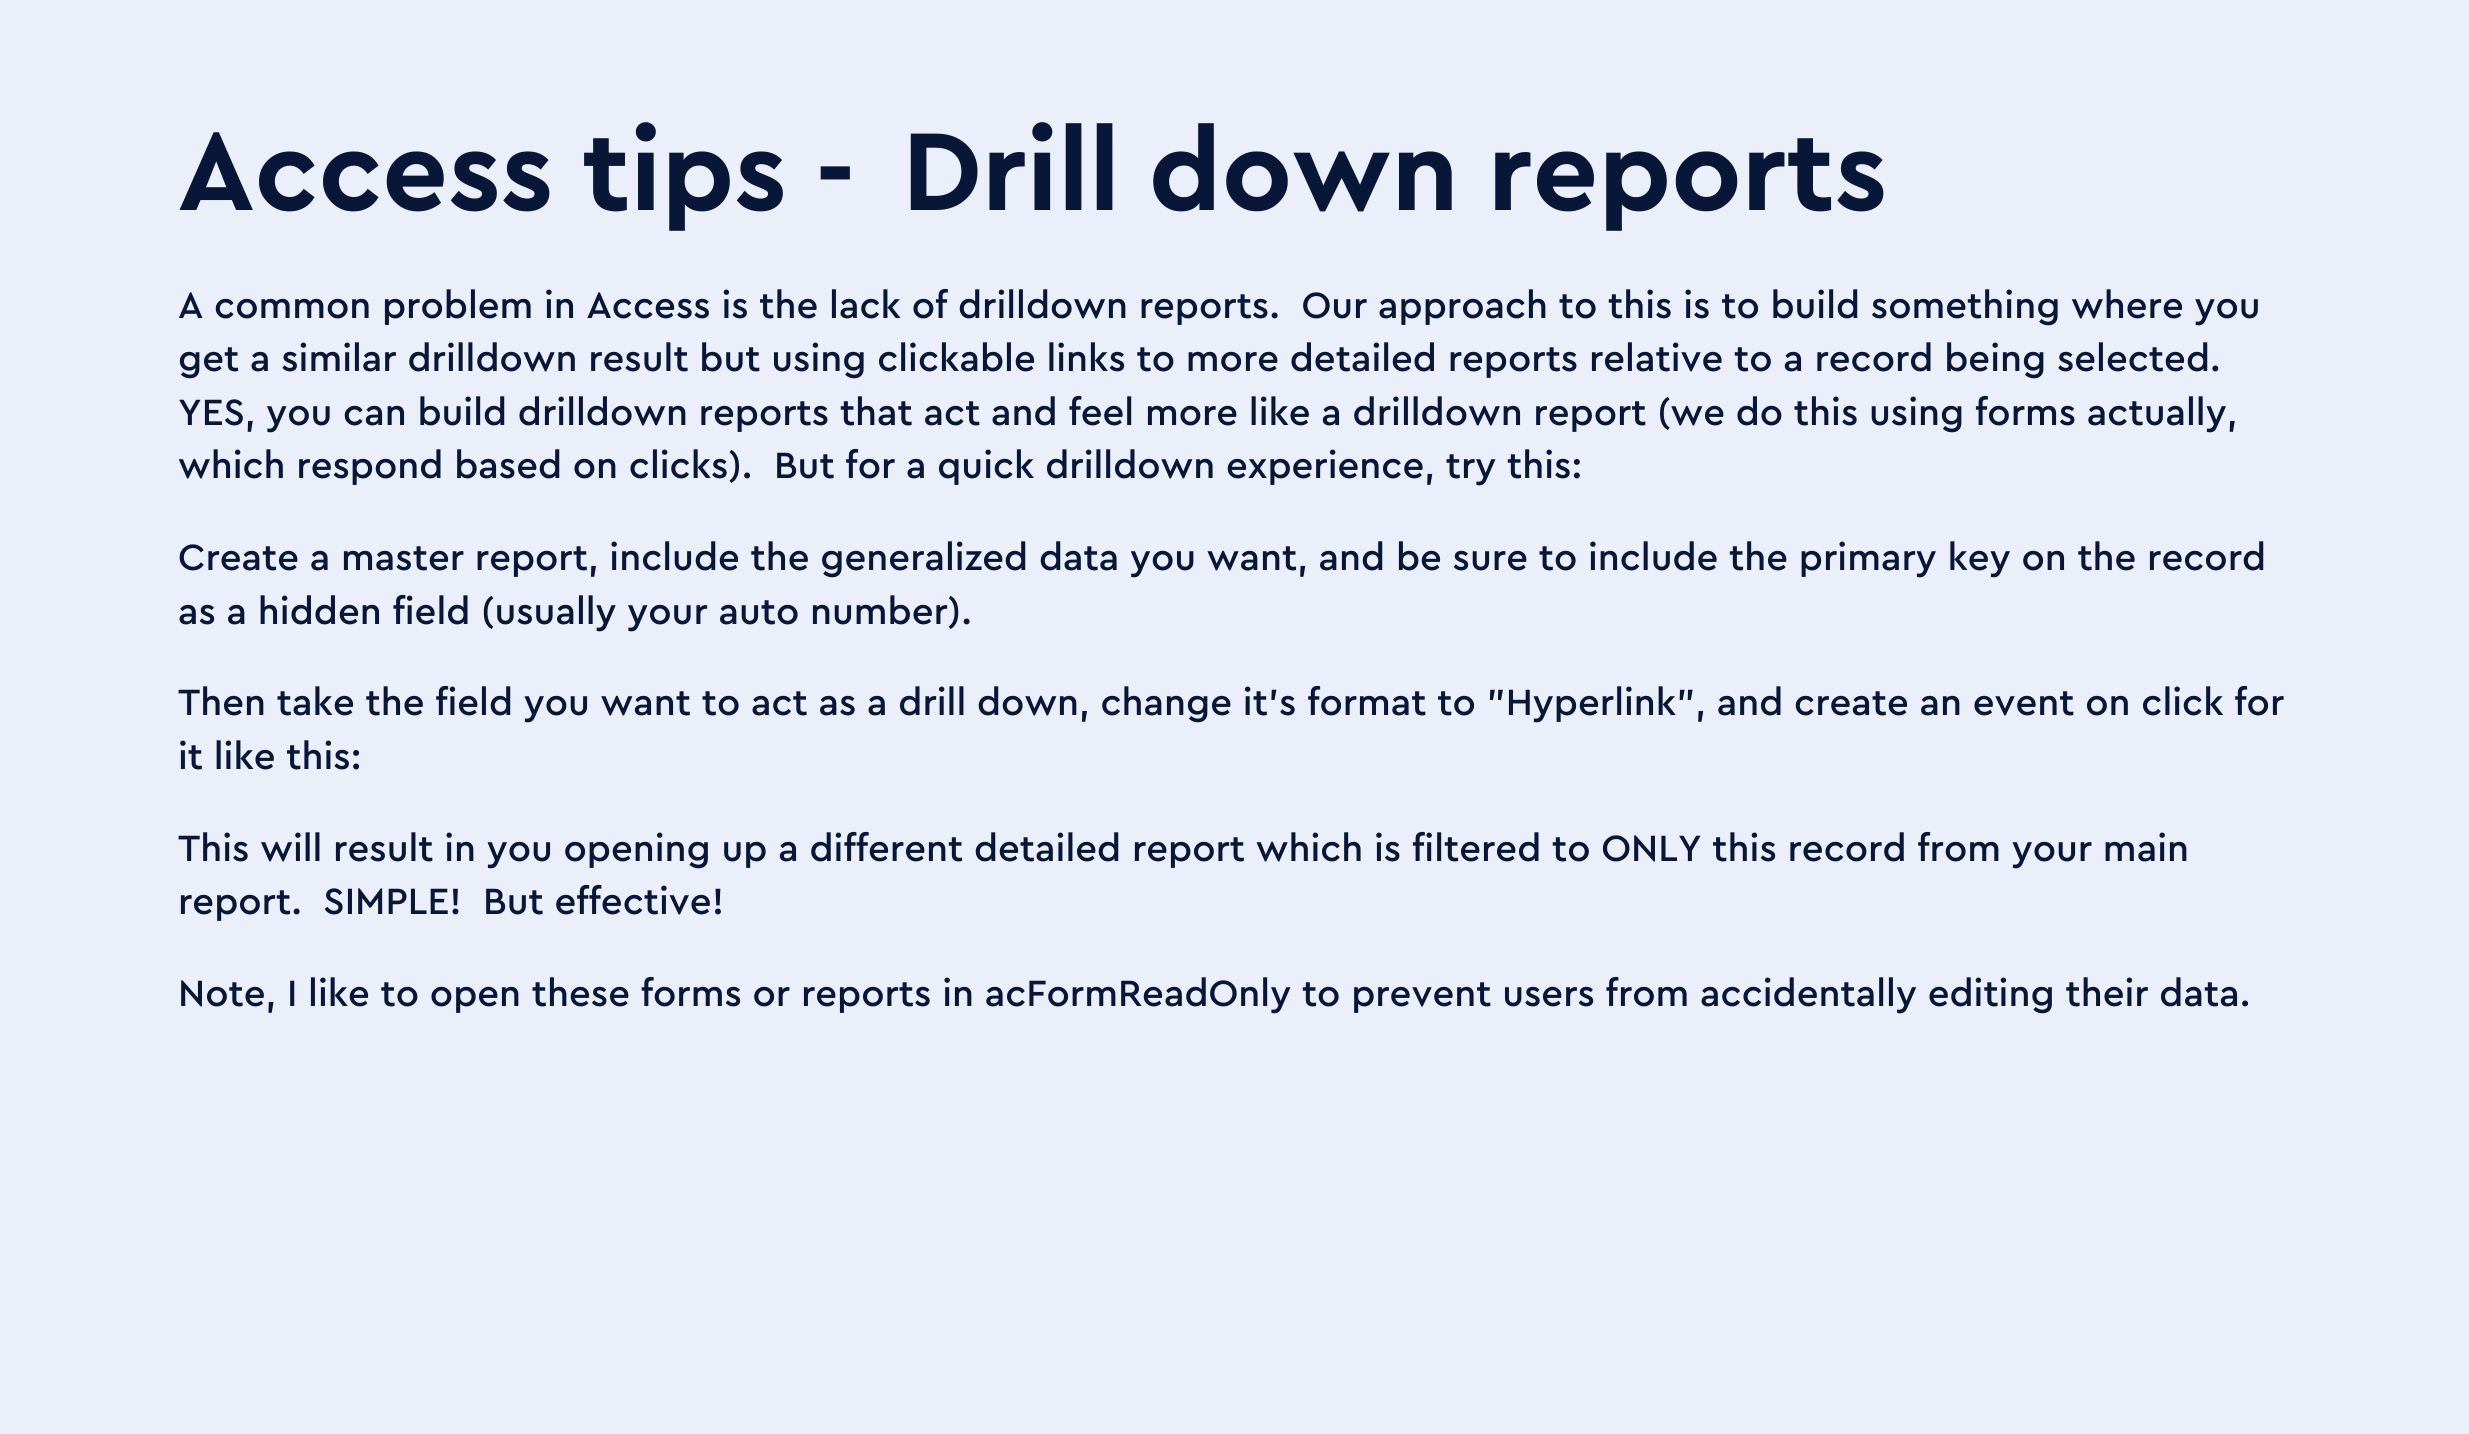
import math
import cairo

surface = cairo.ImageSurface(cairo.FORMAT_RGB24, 2469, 1434)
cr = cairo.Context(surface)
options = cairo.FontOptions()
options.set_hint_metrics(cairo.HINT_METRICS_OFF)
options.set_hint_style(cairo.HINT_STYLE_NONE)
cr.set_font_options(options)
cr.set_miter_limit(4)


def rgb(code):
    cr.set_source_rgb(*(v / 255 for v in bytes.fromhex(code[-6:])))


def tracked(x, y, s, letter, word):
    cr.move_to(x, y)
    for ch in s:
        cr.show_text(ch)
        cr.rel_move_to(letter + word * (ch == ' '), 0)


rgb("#eaeff9")
cr.paint()
cr.select_font_face("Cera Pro", cairo.FONT_SLANT_NORMAL, cairo.FONT_WEIGHT_BOLD)
cr.set_font_size(115.75)
rgb("#081738")
tracked(178, 210, "Access tips -", 0, -3.75)
tracked(902, 210, "Drill down reports", 0, -3.75)
cr.select_font_face("Cera Pro Medium")
cr.set_font_size(38.25)
for x, y, s in [
    (178, 318, "A common problem in Access is the lack of drilldown reports.  Our approach to this is to build something where you"),
    (178, 371, "get a similar drilldown result but using clickable links to more detailed reports relative to a record being selected."),
    (178, 425, "YES, you can build drilldown reports that act and feel more like a drilldown report (we do this using forms actually,"),
    (178, 478, "which respond based on clicks).  But for a quick drilldown experience, try this:"),
    (178, 570, "Create a master report, include the generalized data you want, and be sure to include the primary key on the record"),
    (178, 624, "as a hidden field (usually your auto number)."),
    (178, 715, "Then take the field you want to act as a drill down, change it's format to \"Hyperlink\", and create an event on click for"),
    (178, 769, "it like this:"),
    (178, 861, "This will result in you opening up a different detailed report which is filtered to ONLY this record from your main"),
    (178, 914, "report.  SIMPLE!  But effective!"),
    (178, 1006, "Note, I like to open these forms or reports in acFormReadOnly to prevent users from accidentally editing their data."),
]:
    cr.move_to(x, y)
    cr.show_text(s)
surface.write_to_png("page.png")
